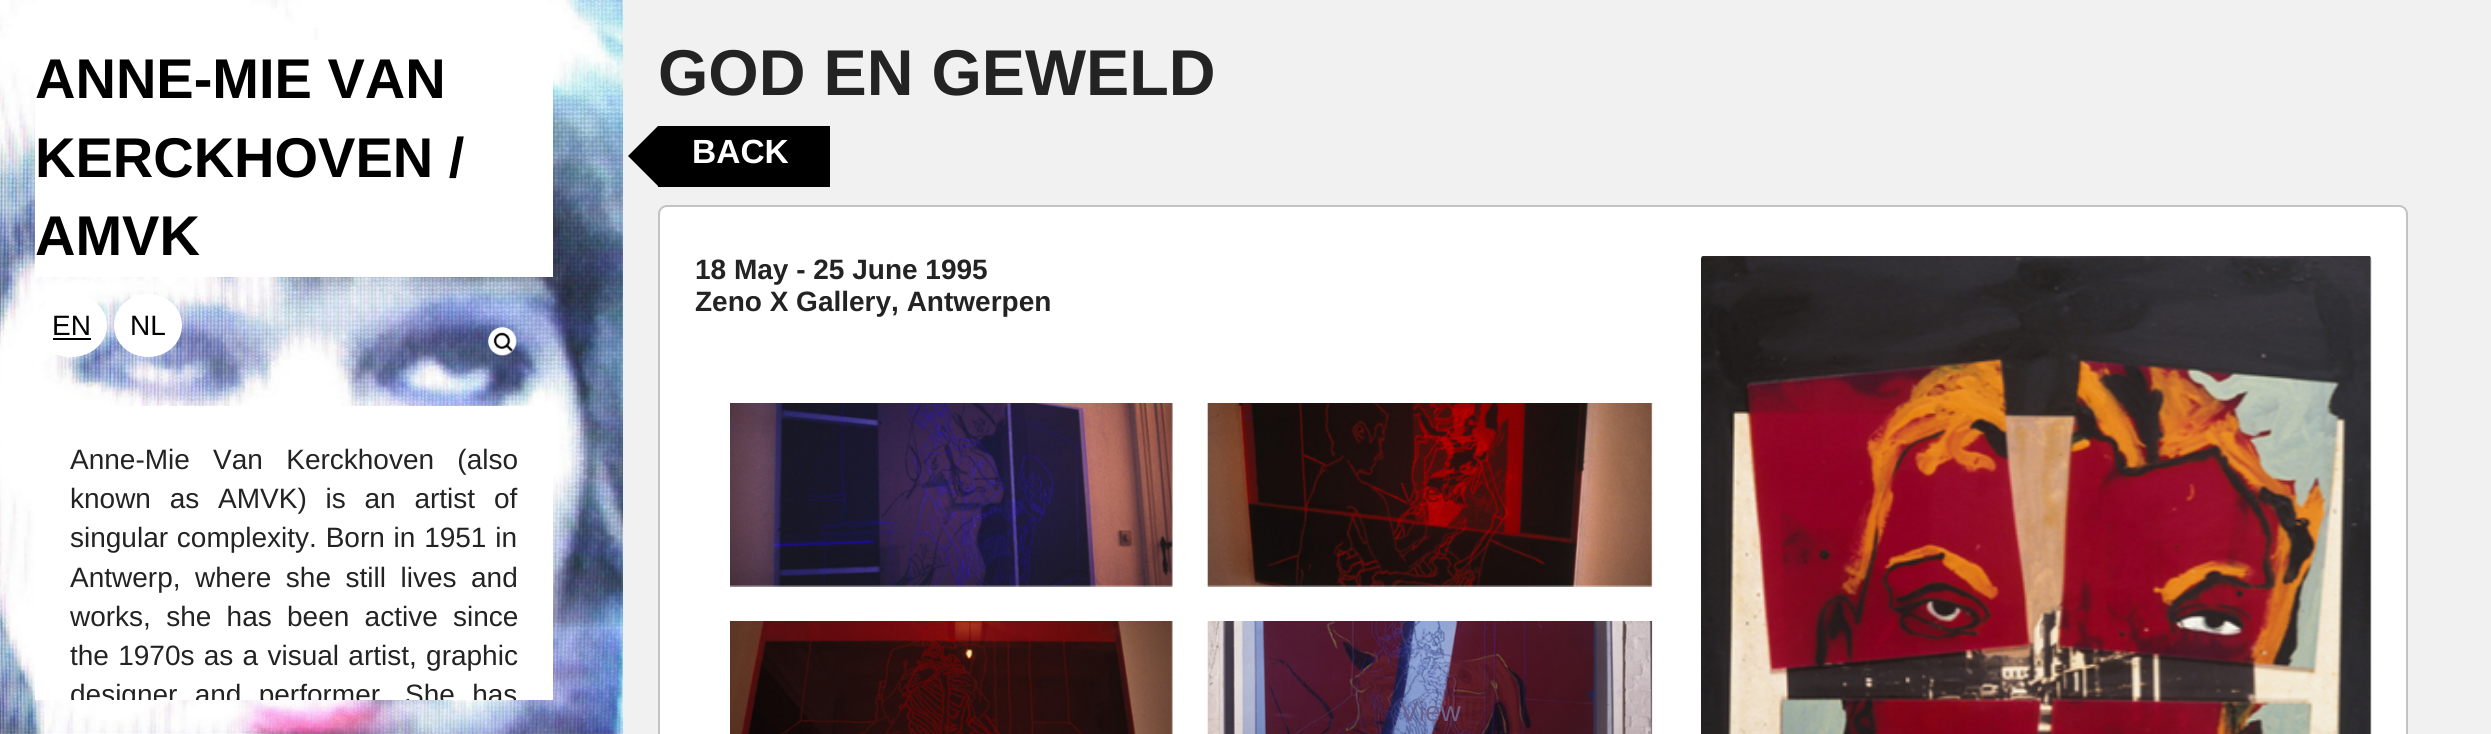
import math
import cairo

surface = cairo.ImageSurface(cairo.FORMAT_RGB24, 2491, 734)
cr = cairo.Context(surface)
options = cairo.FontOptions()
options.set_hint_metrics(cairo.HINT_METRICS_OFF)
options.set_hint_style(cairo.HINT_STYLE_NONE)
cr.set_font_options(options)
cr.set_miter_limit(4)


def rgb(code):
    cr.set_source_rgb(*(v / 255 for v in bytes.fromhex(code[-6:])))


def tracked(x, y, s, letter, word):
    cr.move_to(x, y)
    for ch in s:
        cr.show_text(ch)
        cr.rel_move_to(letter + word * (ch == ' '), 0)


def rrect(x, y, w, h, r):
    cr.new_sub_path()
    for i, (u, v) in enumerate([(x + w - r, y + h - r), (x + r, y + h - r), (x + r, y + r), (x + w - r, y + r)]):
        cr.arc(u, v, r, i * math.pi / 2, (i + 1) * math.pi / 2)
    cr.close_path()


def image(path, x, y, w, h):
    cr.save()
    cr.set_source_surface(cairo.ImageSurface.create_from_png(path), x, y)
    cr.rectangle(x, y, w, h)
    cr.fill()
    cr.restore()


rgb("#ffffff")
cr.paint()
image("img/1.png", 0, 0, 623, 734)
rgb("#ffffff")
cr.rectangle(35, 40, 518, 237)
cr.fill()
cr.new_path()
cr.move_to(71, 294)
cr.curve_to(91, 294, 107, 308, 107, 325.5)
cr.curve_to(107, 343, 91, 357, 71, 357)
cr.curve_to(51, 357, 35, 343, 35, 325.5)
cr.curve_to(35, 308, 51, 294, 71, 294)
cr.close_path()
cr.fill()
rgb("#000000")
cr.rectangle(53, 338, 38, 2)
cr.fill()
rgb("#ffffff")
cr.new_path()
cr.move_to(148, 294)
cr.curve_to(167, 294, 182, 308, 182, 325.5)
cr.curve_to(182, 343, 167, 357, 148, 357)
cr.curve_to(129, 357, 114, 343, 114, 325.5)
cr.curve_to(114, 308, 129, 294, 148, 294)
cr.close_path()
cr.fill()
image("img/2.png", 488, 327, 29, 29)
for x, y, w, h, color in [
    (35, 406, 518, 294, "#ffffff"),
    (623, 0, 1868, 734, "#f1f1f1"),
    (658, 126, 172, 61, "#000000"),
]:
    rgb(color)
    cr.rectangle(x, y, w, h)
    cr.fill()
cr.new_path()
cr.move_to(658, 126)
cr.line_to(658, 186)
cr.line_to(628, 156)
cr.close_path()
cr.fill()
rgb("#ffffff")
cr.new_path()
cr.move_to(667, 206)
cr.line_to(2399, 206)
cr.curve_to(2403, 206, 2406, 210, 2406, 214)
cr.line_to(2406, 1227)
cr.curve_to(2406, 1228, 2403, 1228, 2399, 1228)
cr.line_to(667, 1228)
cr.curve_to(663, 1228, 660, 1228, 660, 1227)
cr.line_to(660, 214)
cr.curve_to(660, 210, 663, 206, 667, 206)
cr.close_path()
cr.fill()
rrect(659, 206, 1748, 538, 8)
rgb("#c3c3c3")
cr.stroke()
image("img/3.png", 1701, 256, 671, 478)
image("img/4.png", 730, 403, 443, 184)
image("img/5.png", 1207, 403, 446, 184)
image("img/6.png", 730, 621, 443, 113)
image("img/7.png", 1207, 621, 446, 113)
cr.select_font_face("Liberation Sans", cairo.FONT_SLANT_NORMAL, cairo.FONT_WEIGHT_BOLD)
cr.set_font_size(56)
rgb("#000000")
for x, y, s in [
    (35, 98, "ANNE-MIE VAN"),
    (35, 177, "KERCKHOVEN /"),
    (35, 255, "AMVK"),
]:
    cr.move_to(x, y)
    cr.show_text(s)
cr.select_font_face("Liberation Sans")
cr.set_font_size(28)
cr.move_to(52, 335)
cr.show_text("EN")
cr.move_to(130, 335)
cr.show_text("NL")
rgb("#232323")
tracked(70, 469, "Anne-Mie Van Kerckhoven (also", 0, 15.5)
tracked(70, 508, "known as AMVK) is an artist of", 0, 11)
tracked(70, 547, "singular complexity. Born in 1951 in", 0, 1)
tracked(70, 587, "Antwerp, where she still lives and", 0, 6.75)
tracked(70, 626, "works, she has been active since", 0, 7.5)
tracked(70, 665, "the 1970s as a visual artist, graphic", 0, 1.5)
cr.save()
cr.rectangle(35, 406, 518, 294)
cr.clip()
tracked(70, 704, "designer and performer. She has", 0, 9.5)
cr.restore()
cr.select_font_face("Liberation Sans", cairo.FONT_SLANT_NORMAL, cairo.FONT_WEIGHT_BOLD)
cr.set_font_size(64.75)
cr.move_to(658, 95)
cr.show_text("GOD EN GEWELD")
cr.set_font_size(33.5)
rgb("#ffffff")
cr.move_to(692, 163)
cr.show_text("BACK")
cr.set_font_size(28)
rgb("#232323")
cr.move_to(695, 279)
cr.show_text("18 May - 25 June 1995")
cr.move_to(695, 311)
cr.show_text("Zeno X Gallery, Antwerpen")
cr.select_font_face("Liberation Sans")
rgb("#660908")
cr.move_to(1400, 502)
cr.show_text("View")
rgb("#6c638d")
cr.move_to(1400, 721)
cr.show_text("View")
surface.write_to_png("page.png")
